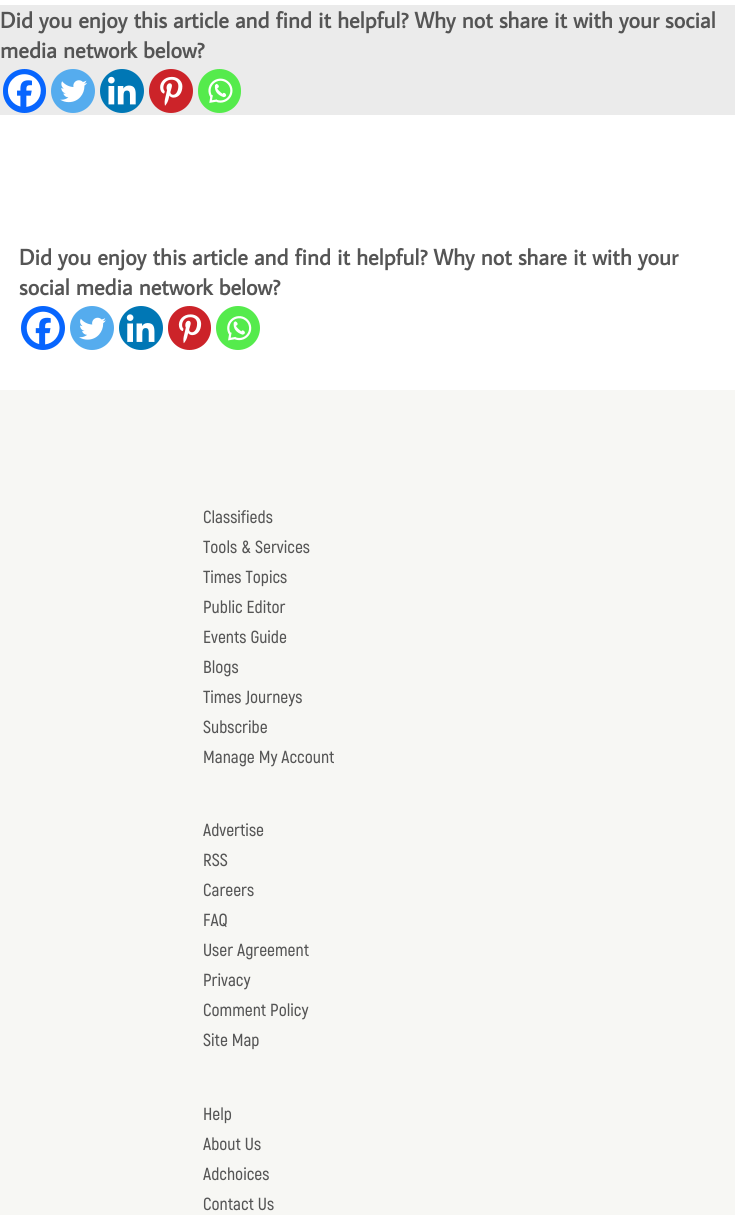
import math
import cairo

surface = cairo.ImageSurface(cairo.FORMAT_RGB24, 735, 1215)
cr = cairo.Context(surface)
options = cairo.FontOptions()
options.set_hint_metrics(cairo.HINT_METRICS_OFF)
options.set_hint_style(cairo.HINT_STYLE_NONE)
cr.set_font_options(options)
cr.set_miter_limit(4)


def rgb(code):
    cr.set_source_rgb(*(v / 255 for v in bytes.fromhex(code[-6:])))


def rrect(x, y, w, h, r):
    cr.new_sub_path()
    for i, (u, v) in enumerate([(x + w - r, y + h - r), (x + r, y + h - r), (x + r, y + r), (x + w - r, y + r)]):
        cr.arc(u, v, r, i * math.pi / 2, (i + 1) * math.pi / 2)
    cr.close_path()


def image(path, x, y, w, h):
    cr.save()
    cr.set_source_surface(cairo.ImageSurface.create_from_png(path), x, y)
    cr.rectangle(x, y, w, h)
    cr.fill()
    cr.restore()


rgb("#ffffff")
cr.paint()
rgb("#ebebeb")
cr.rectangle(0, 5, 735, 110)
cr.fill()
rgb("#0765fe")
rrect(3, 69, 43, 44, 21.5)
cr.fill()
image("img/1.png", 8, 74, 33, 33)
rgb("#55acee")
cr.arc(73, 91, 22, 0, 2 * math.pi)
cr.fill()
image("img/2.png", 60, 80, 27, 23)
rgb("#0077b5")
cr.arc(122, 91, 22, 0, 2 * math.pi)
cr.fill()
image("img/3.png", 108, 76, 28, 29)
rgb("#cc2329")
cr.arc(171, 91, 22, 0, 2 * math.pi)
cr.fill()
image("img/4.png", 160, 76, 23, 30)
rgb("#55eb4c")
rrect(198, 69, 43, 44, 21.5)
cr.fill()
image("img/5.png", 208, 78, 25, 25)
rgb("#0765fe")
cr.arc(43, 328, 22, 0, 2 * math.pi)
cr.fill()
image("img/6.png", 26, 311, 34, 34)
rgb("#55acee")
cr.arc(92, 328, 22, 0, 2 * math.pi)
cr.fill()
image("img/7.png", 79, 317, 27, 23)
rgb("#0077b5")
cr.arc(141, 328, 22, 0, 2 * math.pi)
cr.fill()
image("img/8.png", 126, 314, 29, 28)
rgb("#cc2329")
rrect(168, 306, 43, 44, 21.5)
cr.fill()
image("img/9.png", 178, 314, 24, 30)
rgb("#55eb4c")
cr.arc(238, 328, 22, 0, 2 * math.pi)
cr.fill()
image("img/10.png", 227, 316, 25, 25)
rgb("#f7f7f4")
cr.rectangle(0, 390, 735, 825)
cr.fill()
cr.select_font_face("Average Sans", cairo.FONT_SLANT_NORMAL, cairo.FONT_WEIGHT_BOLD)
cr.set_font_size(22.5)
rgb("#555555")
for x, y, s in [
    (0, 28, "Did you enjoy this article and find it helpful? Why not share it with your social"),
    (0, 58, "media network below?"),
    (19, 265, "Did you enjoy this article and find it helpful? Why not share it with your"),
    (19, 295, "social media network below?"),
]:
    cr.move_to(x, y)
    cr.show_text(s)
cr.select_font_face("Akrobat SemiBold")
cr.set_font_size(17.5)
for x, y, s in [
    (203, 523, "Classifieds"),
    (203, 553, "Tools & Services"),
    (203, 583, "Times Topics"),
    (203, 613, "Public Editor"),
    (203, 643, "Events Guide"),
    (203, 673, "Blogs"),
    (203, 703, "Times Journeys"),
    (203, 733, "Subscribe"),
    (203, 763, "Manage My Account"),
    (203, 836, "Advertise"),
    (203, 866, "RSS"),
    (203, 896, "Careers"),
    (203, 926, "FAQ"),
    (203, 956, "User Agreement"),
    (203, 986, "Privacy"),
    (203, 1016, "Comment Policy"),
    (203, 1046, "Site Map"),
    (203, 1120, "Help"),
    (203, 1150, "About Us"),
    (203, 1180, "Adchoices"),
    (203, 1210, "Contact Us"),
]:
    cr.move_to(x, y)
    cr.show_text(s)
surface.write_to_png("page.png")
